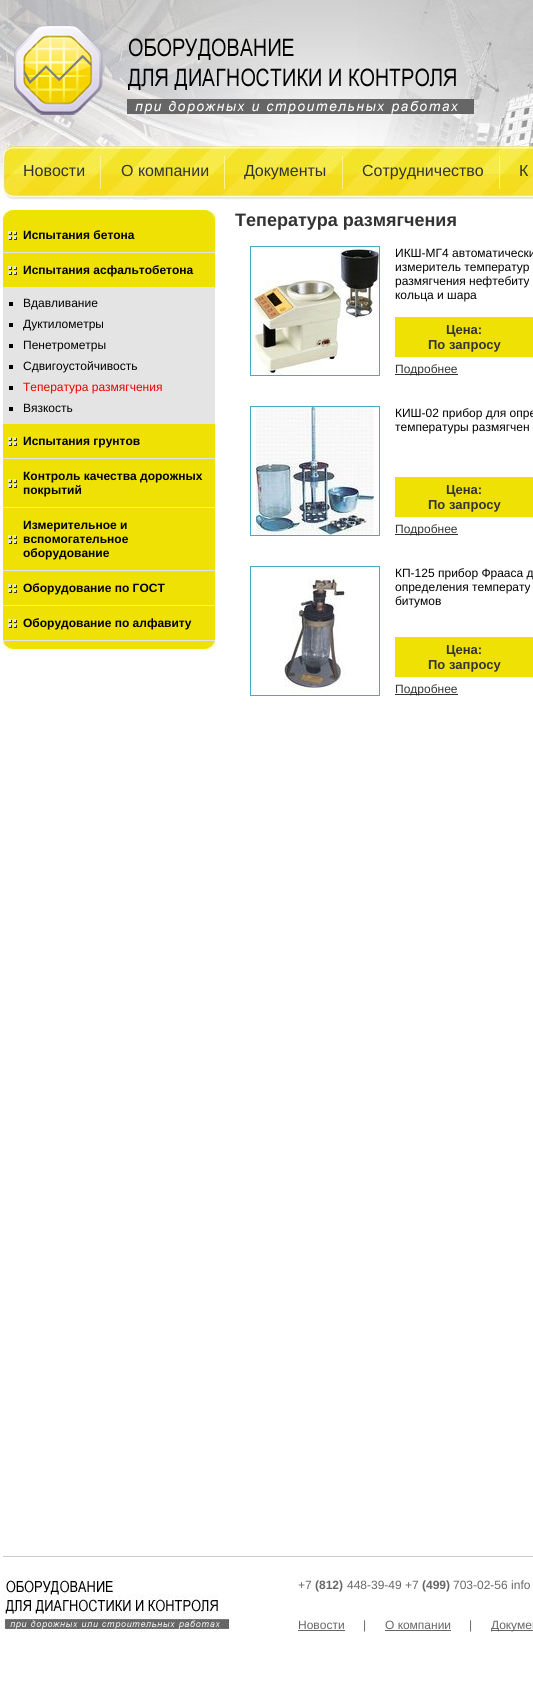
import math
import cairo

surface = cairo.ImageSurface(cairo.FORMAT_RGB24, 533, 1693)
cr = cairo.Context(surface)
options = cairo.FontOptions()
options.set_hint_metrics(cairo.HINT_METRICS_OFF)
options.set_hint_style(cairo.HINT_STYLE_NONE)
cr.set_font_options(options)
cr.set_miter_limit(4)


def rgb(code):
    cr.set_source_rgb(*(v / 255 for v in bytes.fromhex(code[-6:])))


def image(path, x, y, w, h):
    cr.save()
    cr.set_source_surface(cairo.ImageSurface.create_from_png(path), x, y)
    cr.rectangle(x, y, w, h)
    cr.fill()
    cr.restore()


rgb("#ffffff")
cr.paint()
image("img/1.png", 0, 0, 3, 192)
image("img/2.png", 3, 0, 530, 200)
image("img/3.png", 14, 25, 460, 90)
for x, y, w, h, color in [
    (100, 156, 1, 33, "#fff392"),
    (224, 156, 1, 33, "#fff392"),
    (342, 156, 1, 33, "#fff392"),
    (499, 156, 1, 33, "#fff392"),
]:
    rgb(color)
    cr.rectangle(x, y, w, h)
    cr.fill()
image("img/4.png", 3, 210, 212, 8)
rgb("#efe104")
cr.rectangle(3, 218, 212, 34)
cr.fill()
rgb("#e4e4e4")
cr.rectangle(3, 252, 212, 1)
cr.fill()
image("img/5.png", 8, 231, 9, 9)
rgb("#efe104")
cr.rectangle(3, 253, 212, 34)
cr.fill()
rgb("#e4e4e4")
cr.rectangle(3, 287, 212, 137)
cr.fill()
image("img/5.png", 8, 266, 9, 9)
for x, y, w, h, color in [
    (9, 302, 4, 4, "#000000"),
    (9, 323, 4, 4, "#000000"),
    (9, 344, 4, 4, "#000000"),
    (9, 365, 4, 4, "#000000"),
    (9, 386, 4, 4, "#000000"),
    (9, 407, 4, 4, "#000000"),
    (3, 424, 212, 34, "#efe104"),
    (3, 458, 212, 1, "#e4e4e4"),
]:
    rgb(color)
    cr.rectangle(x, y, w, h)
    cr.fill()
image("img/5.png", 8, 437, 9, 9)
rgb("#efe104")
cr.rectangle(3, 459, 212, 48)
cr.fill()
rgb("#e4e4e4")
cr.rectangle(3, 507, 212, 1)
cr.fill()
image("img/5.png", 8, 479, 9, 9)
rgb("#efe104")
cr.rectangle(3, 508, 212, 62)
cr.fill()
rgb("#e4e4e4")
cr.rectangle(3, 570, 212, 1)
cr.fill()
image("img/5.png", 8, 535, 9, 9)
rgb("#efe104")
cr.rectangle(3, 571, 212, 34)
cr.fill()
rgb("#e4e4e4")
cr.rectangle(3, 605, 212, 1)
cr.fill()
image("img/5.png", 8, 584, 9, 9)
rgb("#efe104")
cr.rectangle(3, 606, 212, 34)
cr.fill()
rgb("#e4e4e4")
cr.rectangle(3, 640, 212, 1)
cr.fill()
image("img/5.png", 8, 619, 9, 9)
image("img/6.png", 3, 641, 212, 8)
cr.rectangle(250.5, 246.5, 129, 129)
rgb("#46aac1")
cr.set_line_width(1)
cr.stroke()
image("img/7.png", 251, 248, 128, 127)
rgb("#efe104")
cr.rectangle(395, 317, 138, 40)
cr.fill()
rgb("#333333")
cr.rectangle(395, 374, 63, 1)
cr.fill()
cr.rectangle(250.5, 406.5, 129, 129)
rgb("#46aac1")
cr.stroke()
image("img/8.png", 256, 407, 118, 128)
rgb("#efe104")
cr.rectangle(395, 477, 138, 40)
cr.fill()
rgb("#333333")
cr.rectangle(395, 534, 63, 1)
cr.fill()
cr.rectangle(250.5, 566.5, 129, 129)
rgb("#46aac1")
cr.stroke()
image("img/9.png", 284, 575, 64, 120)
for x, y, w, h, color in [
    (395, 637, 138, 40, "#efe104"),
    (395, 694, 63, 1, "#333333"),
    (3, 1556, 530, 1, "#cccccc"),
]:
    rgb(color)
    cr.rectangle(x, y, w, h)
    cr.fill()
image("img/10.png", 3, 1578, 229, 54)
for x, y, w, h, color in [
    (298, 1630, 47, 1, "#666666"),
    (385, 1630, 66, 1, "#666666"),
    (491, 1630, 42, 1, "#666666"),
]:
    rgb(color)
    cr.rectangle(x, y, w, h)
    cr.fill()
cr.select_font_face("Liberation Sans")
cr.set_font_size(16)
rgb("#333333")
for x, y, s in [
    (23, 176, "Новости"),
    (121, 176, "О компании"),
    (244, 176, "Документы"),
    (362, 176, "Сотрудничество"),
    (519, 176, "К"),
]:
    cr.move_to(x, y)
    cr.show_text(s)
cr.select_font_face("Liberation Sans", cairo.FONT_SLANT_NORMAL, cairo.FONT_WEIGHT_BOLD)
cr.set_font_size(12)
rgb("#000000")
cr.move_to(23, 239)
cr.show_text("Испытания бетона")
cr.move_to(23, 274)
cr.show_text("Испытания асфальтобетона")
cr.select_font_face("Liberation Sans")
for x, y, s in [
    (23, 307, "Вдавливание"),
    (23, 328, "Дуктилометры"),
    (23, 349, "Пенетрометры"),
    (23, 370, "Сдвигоустойчивость"),
]:
    cr.move_to(x, y)
    cr.show_text(s)
rgb("#eb0000")
cr.move_to(23, 391)
cr.show_text("Тепература размягчения")
rgb("#000000")
cr.move_to(23, 412)
cr.show_text("Вязкость")
cr.select_font_face("Liberation Sans", cairo.FONT_SLANT_NORMAL, cairo.FONT_WEIGHT_BOLD)
for x, y, s in [
    (23, 445, "Испытания грунтов"),
    (23, 480, "Контроль качества дорожных"),
    (23, 494, "покрытий"),
    (23, 529, "Измерительное и"),
    (23, 543, "вспомогательное"),
    (23, 557, "оборудование"),
    (23, 592, "Оборудование по ГОСТ"),
    (23, 627, "Оборудование по алфавиту"),
]:
    cr.move_to(x, y)
    cr.show_text(s)
cr.set_font_size(18)
rgb("#333333")
cr.move_to(235, 226)
cr.show_text("Тепература размягчения")
cr.select_font_face("Liberation Sans")
cr.set_font_size(12)
rgb("#000000")
for x, y, s in [
    (395, 257, "ИКШ-МГ4 автоматически"),
    (395, 271, "измеритель температур"),
    (395, 285, "размягчения нефтебиту"),
    (395, 299, "кольца и шара"),
]:
    cr.move_to(x, y)
    cr.show_text(s)
cr.select_font_face("Liberation Sans", cairo.FONT_SLANT_NORMAL, cairo.FONT_WEIGHT_BOLD)
cr.set_font_size(13)
rgb("#333333")
cr.move_to(446, 334)
cr.show_text("Цена:")
cr.move_to(428, 349)
cr.show_text("По запросу")
cr.select_font_face("Liberation Sans")
cr.set_font_size(12)
cr.move_to(395, 373)
cr.show_text("Подробнее")
rgb("#000000")
cr.move_to(395, 417)
cr.show_text("КИШ-02 прибор для опре")
cr.move_to(395, 431)
cr.show_text("температуры размягчен")
cr.select_font_face("Liberation Sans", cairo.FONT_SLANT_NORMAL, cairo.FONT_WEIGHT_BOLD)
cr.set_font_size(13)
rgb("#333333")
cr.move_to(446, 494)
cr.show_text("Цена:")
cr.move_to(428, 509)
cr.show_text("По запросу")
cr.select_font_face("Liberation Sans")
cr.set_font_size(12)
cr.move_to(395, 533)
cr.show_text("Подробнее")
rgb("#000000")
for x, y, s in [
    (395, 577, "КП-125 прибор Фрааса д"),
    (395, 591, "определения температу"),
    (395, 605, "битумов"),
]:
    cr.move_to(x, y)
    cr.show_text(s)
cr.select_font_face("Liberation Sans", cairo.FONT_SLANT_NORMAL, cairo.FONT_WEIGHT_BOLD)
cr.set_font_size(13)
rgb("#333333")
cr.move_to(446, 654)
cr.show_text("Цена:")
cr.move_to(428, 669)
cr.show_text("По запросу")
cr.select_font_face("Liberation Sans")
cr.set_font_size(12)
cr.move_to(395, 693)
cr.show_text("Подробнее")
rgb("#666666")
cr.move_to(298, 1589)
cr.show_text("+7")
cr.select_font_face("Liberation Sans", cairo.FONT_SLANT_NORMAL, cairo.FONT_WEIGHT_BOLD)
cr.move_to(315, 1589)
cr.show_text("(812)")
cr.select_font_face("Liberation Sans")
cr.move_to(347, 1589)
cr.show_text("448-39-49 +7")
cr.select_font_face("Liberation Sans", cairo.FONT_SLANT_NORMAL, cairo.FONT_WEIGHT_BOLD)
cr.move_to(422, 1589)
cr.show_text("(499)")
cr.select_font_face("Liberation Sans")
for x, y, s in [
    (453, 1589, "703-02-56 info"),
    (298, 1629, "Новости"),
    (363, 1629, "|"),
    (385, 1629, "О компании"),
    (469, 1629, "|"),
    (491, 1629, "Докумен"),
]:
    cr.move_to(x, y)
    cr.show_text(s)
surface.write_to_png("page.png")
